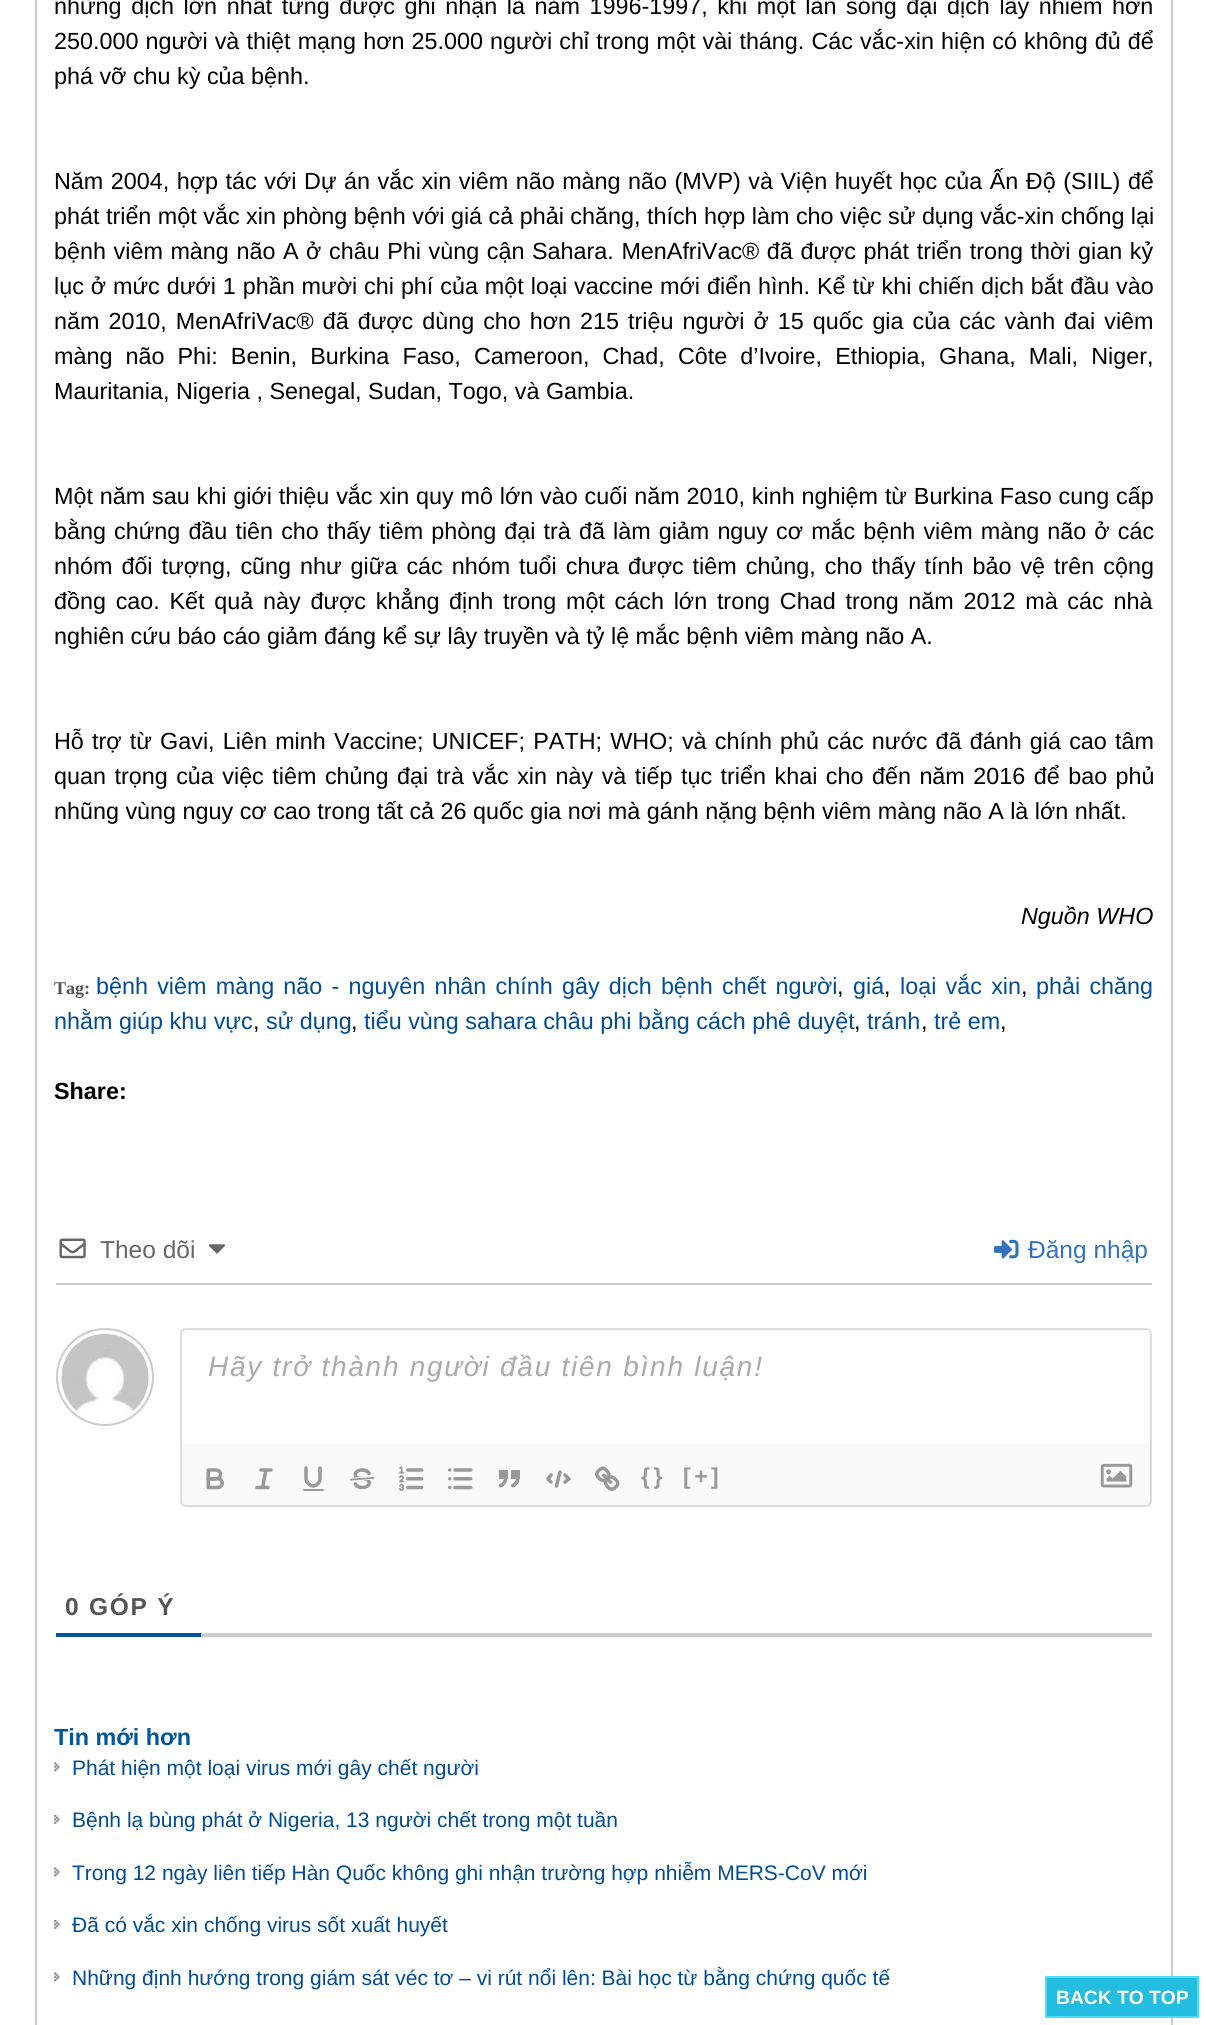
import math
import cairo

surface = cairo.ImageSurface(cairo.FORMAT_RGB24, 1206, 2025)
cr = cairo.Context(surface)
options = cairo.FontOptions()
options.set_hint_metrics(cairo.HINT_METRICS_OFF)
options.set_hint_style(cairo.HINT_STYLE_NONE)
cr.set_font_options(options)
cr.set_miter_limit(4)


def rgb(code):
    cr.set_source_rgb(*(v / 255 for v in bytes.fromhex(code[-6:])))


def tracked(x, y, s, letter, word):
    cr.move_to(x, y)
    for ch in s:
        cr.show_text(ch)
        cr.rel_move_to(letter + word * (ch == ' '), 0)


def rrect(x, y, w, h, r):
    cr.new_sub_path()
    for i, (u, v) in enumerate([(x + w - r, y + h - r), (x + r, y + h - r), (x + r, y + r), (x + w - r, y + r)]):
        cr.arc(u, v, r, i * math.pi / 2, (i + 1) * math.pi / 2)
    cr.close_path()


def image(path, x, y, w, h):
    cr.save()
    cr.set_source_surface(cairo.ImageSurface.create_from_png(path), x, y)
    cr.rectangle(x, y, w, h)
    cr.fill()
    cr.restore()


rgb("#ffffff")
cr.paint()
cr.rectangle(36, -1, 1136, 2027)
rgb("#cbcbcb")
cr.stroke()
rgb("#cccccc")
cr.rectangle(56, 1283, 1096, 2)
cr.fill()
image("img/1.png", 59, 1238, 27, 21)
image("img/2.png", 208, 1244, 18, 10)
image("img/3.png", 994, 1239, 25, 20)
cr.arc(105, 1377, 48, 0, 2 * math.pi)
cr.stroke()
image("img/4.png", 61, 1334, 88, 78)
rgb("#dddddd")
cr.set_fill_rule(cairo.FILL_RULE_EVEN_ODD)
cr.new_path()
cr.move_to(186, 1328)
cr.line_to(1146, 1328)
cr.curve_to(1149, 1328, 1152, 1331, 1152, 1334)
cr.line_to(1152, 1444)
cr.line_to(180, 1444)
cr.line_to(180, 1334)
cr.curve_to(180, 1331, 183, 1328, 186, 1328)
cr.close_path()
cr.move_to(186, 1330)
cr.line_to(1146, 1330)
cr.curve_to(1148, 1330, 1150, 1332, 1150, 1334)
cr.line_to(1150, 1444)
cr.line_to(182, 1444)
cr.line_to(182, 1334)
cr.curve_to(182, 1332, 184, 1330, 186, 1330)
cr.close_path()
cr.fill()
rgb("#fafafa")
cr.new_path()
cr.move_to(180, 1444)
cr.line_to(1152, 1444)
cr.line_to(1152, 1502)
cr.curve_to(1152, 1505, 1150, 1507, 1147, 1507)
cr.line_to(185, 1507)
cr.curve_to(182, 1507, 180, 1505, 180, 1502)
cr.close_path()
cr.fill()
rgb("#dddddd")
cr.new_path()
cr.move_to(180, 1444)
cr.line_to(1152, 1444)
cr.line_to(1152, 1502)
cr.curve_to(1152, 1504, 1149, 1507, 1146, 1507)
cr.line_to(186, 1507)
cr.curve_to(183, 1507, 180, 1504, 180, 1502)
cr.close_path()
cr.move_to(182, 1444)
cr.line_to(1150, 1444)
cr.line_to(1150, 1502)
cr.curve_to(1150, 1503, 1148, 1505, 1146, 1505)
cr.line_to(186, 1505)
cr.curve_to(184, 1505, 182, 1503, 182, 1502)
cr.close_path()
cr.fill()
image("img/5.png", 206, 1468, 18, 22)
cr.new_path()
cr.move_to(261, 1470)
cr.line_to(271, 1470)
cr.move_to(257, 1487.5)
cr.line_to(268, 1487.5)
cr.move_to(262.5, 1487.5)
cr.line_to(266, 1470)
rgb("#999999")
cr.set_line_width(3.5)
cr.set_line_cap(cairo.LINE_CAP_ROUND)
cr.set_line_join(cairo.LINE_JOIN_ROUND)
cr.stroke()
cr.new_path()
cr.move_to(306, 1468)
cr.line_to(306, 1479)
cr.curve_to(306.5, 1482.5, 309.5, 1485.5, 313, 1486)
cr.curve_to(317, 1485.5, 320, 1482.5, 320, 1479)
cr.line_to(320, 1468)
cr.stroke()
rrect(303, 1489, 21, 2, 1)
cr.fill()
image("img/6.png", 350, 1468, 25, 22)
image("img/7.png", 399, 1466, 25, 25)
image("img/8.png", 448, 1468, 25, 22)
image("img/9.png", 498, 1470, 22, 18)
cr.new_path()
cr.move_to(551, 1475)
cr.line_to(548, 1479)
cr.line_to(551, 1482)
cr.move_to(565, 1475)
cr.line_to(569, 1479)
cr.line_to(565, 1482)
cr.move_to(560, 1472)
cr.line_to(556.5, 1486)
cr.stroke()
image("img/10.png", 595, 1466, 25, 25)
image("img/11.png", 1100, 1463, 33, 25)
rgb("#cccccc")
cr.rectangle(201, 1633, 951, 4)
cr.fill()
rgb("#00559b")
cr.rectangle(56, 1633, 145, 4)
cr.fill()
image("img/12.png", 54, 1762, 6, 10)
image("img/13.png", 54, 1815, 6, 9)
image("img/12.png", 54, 1867, 6, 10)
image("img/13.png", 54, 1920, 6, 9)
image("img/12.png", 54, 1972, 6, 10)
rgb("#24bde2")
cr.rectangle(1046, 1977, 152, 40)
cr.fill_preserve()
rgb("#4adcff")
cr.set_line_width(2)
cr.set_line_cap(cairo.LINE_CAP_BUTT)
cr.set_line_join(cairo.LINE_JOIN_MITER)
cr.stroke()
cr.select_font_face("Liberation Sans")
cr.set_font_size(23.35)
rgb("#000000")
tracked(54, 14, "những dịch lớn nhất từng được ghi nhận là năm 1996-1997, khi một làn sóng đại dịch lây nhiễm hơn", 0, 3.1)
tracked(54, 49, "250.000 người và thiệt mạng hơn 25.000 người chỉ trong một vài tháng. Các vắc-xin hiện có không đủ để", 0, 0.6)
cr.move_to(54, 84)
cr.show_text("phá vỡ chu kỳ của bệnh.")
tracked(54, 189, "Năm 2004, hợp tác với Dự án vắc xin viêm não màng não (MVP) và Viện huyết học của Ấn Độ (SIIL) để", 0, 1.05)
cr.move_to(54, 224)
cr.show_text("phát triển một vắc xin phòng bệnh với giá cả phải chăng, thích hợp làm cho việc sử dụng vắc-xin chống lại")
tracked(54, 259, "bệnh viêm màng não A ở châu Phi vùng cận Sahara. MenAfriVac® đã được phát triển trong thời gian kỷ", 0, 1.1)
tracked(54, 294, "lục ở mức dưới 1 phần mười chi phí của một loại vaccine mới điển hình. Kể từ khi chiến dịch bắt đầu vào", 0, 0.45)
tracked(54, 329, "năm 2010, MenAfriVac® đã được dùng cho hơn 215 triệu người ở 15 quốc gia của các vành đai viêm", 0, 2.5)
tracked(54, 364, "màng não Phi: Benin, Burkina Faso, Cameroon, Chad, Côte d’Ivoire, Ethiopia, Ghana, Mali, Niger,", 0, 6.6)
cr.move_to(54, 399)
cr.show_text("Mauritania, Nigeria , Senegal, Sudan, Togo, và Gambia.")
tracked(54, 504, "Một năm sau khi giới thiệu vắc xin quy mô lớn vào cuối năm 2010, kinh nghiệm từ Burkina Faso cung cấp", 0, 0.35)
tracked(54, 539, "bằng chứng đầu tiên cho thấy tiêm phòng đại trà đã làm giảm nguy cơ mắc bệnh viêm màng não ở các", 0, 1.6)
tracked(54, 574, "nhóm đối tượng, cũng như giữa các nhóm tuổi chưa được tiêm chủng, cho thấy tính bảo vệ trên cộng", 0, 2.5)
tracked(54, 609, "đồng cao. Kết quả này được khẳng định trong một cách lớn trong Chad trong năm 2012 mà các nhà", 0, 3.25)
cr.move_to(54, 644)
cr.show_text("nghiên cứu báo cáo giảm đáng kể sự lây truyền và tỷ lệ mắc bệnh viêm màng não A.")
tracked(54, 749, "Hỗ trợ từ Gavi, Liên minh Vaccine; UNICEF; PATH; WHO; và chính phủ các nước đã đánh giá cao tâm", 0, 1.7)
tracked(54, 784, "quan trọng của việc tiêm chủng đại trà vắc xin này và tiếp tục triển khai cho đến năm 2016 để bao phủ", 0, 2)
cr.move_to(54, 819)
cr.show_text("nhũng vùng nguy cơ cao trong tất cả 26 quốc gia nơi mà gánh nặng bệnh viêm màng não A là lớn nhất.")
cr.select_font_face("Liberation Sans", cairo.FONT_SLANT_ITALIC)
cr.move_to(1021, 924)
cr.show_text("Nguồn WHO")
cr.select_font_face("Liberation Serif", cairo.FONT_SLANT_NORMAL, cairo.FONT_WEIGHT_BOLD)
cr.set_font_size(18)
rgb("#555555")
cr.move_to(54, 994)
cr.show_text("Tag:")
cr.select_font_face("Liberation Sans")
cr.set_font_size(23.35)
rgb("#004b91")
tracked(96, 994, "bệnh viêm màng não - nguyên nhân chính gây dịch bệnh chết người", 0, 2.75)
rgb("#000000")
cr.move_to(837, 994)
cr.show_text(",")
rgb("#004b91")
cr.move_to(853, 994)
cr.show_text("giá")
rgb("#000000")
cr.move_to(884, 994)
cr.show_text(",")
rgb("#004b91")
tracked(900, 994, "loại vắc xin", 0, 2.75)
rgb("#000000")
cr.move_to(1021, 994)
cr.show_text(",")
rgb("#004b91")
tracked(1036, 994, "phải chăng", 0, 2.75)
cr.move_to(54, 1029)
cr.show_text("nhằm giúp khu vực")
rgb("#000000")
cr.move_to(253, 1029)
cr.show_text(",")
rgb("#004b91")
cr.move_to(266, 1029)
cr.show_text("sử dụng")
rgb("#000000")
cr.move_to(351, 1029)
cr.show_text(",")
rgb("#004b91")
cr.move_to(364, 1029)
cr.show_text("tiểu vùng sahara châu phi bằng cách phê duyệt")
rgb("#000000")
cr.move_to(854, 1029)
cr.show_text(",")
rgb("#004b91")
cr.move_to(867, 1029)
cr.show_text("tránh")
rgb("#000000")
cr.move_to(921, 1029)
cr.show_text(",")
rgb("#004b91")
cr.move_to(934, 1029)
cr.show_text("trẻ em")
rgb("#000000")
cr.move_to(1000, 1029)
cr.show_text(",")
cr.select_font_face("Liberation Sans", cairo.FONT_SLANT_NORMAL, cairo.FONT_WEIGHT_BOLD)
cr.move_to(54, 1099)
cr.show_text("Share:")
cr.select_font_face("Liberation Sans")
cr.set_font_size(24.5)
rgb("#666666")
cr.move_to(100, 1258)
cr.show_text("Theo dõi")
rgb("#3272bf")
cr.move_to(1028, 1258)
cr.show_text("Đăng nhập")
cr.select_font_face("Liberation Sans", cairo.FONT_SLANT_ITALIC)
cr.set_font_size(28)
rgb("#aaaaaa")
tracked(208, 1376, "Hãy trở thành người đầu tiên bình luận!", 1.75, 0)
cr.select_font_face("Liberation Sans", cairo.FONT_SLANT_NORMAL, cairo.FONT_WEIGHT_BOLD)
cr.set_font_size(23)
rgb("#999999")
tracked(641, 1484, "{}", 3.5, 0)
tracked(683, 1484, "[+]", 3.5, 0)
cr.set_font_size(24.5)
rgb("#555555")
tracked(65, 1615, "0 GÓP Ý", 1.75, 0)
cr.set_font_size(23.35)
rgb("#00559b")
cr.move_to(54, 1745)
cr.show_text("Tin mới hơn")
cr.select_font_face("Liberation Sans")
cr.set_font_size(21)
rgb("#004b91")
for x, y, s in [
    (72, 1775, "Phát hiện một loại virus mới gây chết người"),
    (72, 1827, "Bệnh lạ bùng phát ở Nigeria, 13 người chết trong một tuần"),
    (72, 1880, "Trong 12 ngày liên tiếp Hàn Quốc không ghi nhận trường hợp nhiễm MERS-CoV mới"),
    (72, 1932, "Đã có vắc xin chống virus sốt xuất huyết"),
    (72, 1985, "Những định hướng trong giám sát véc tơ – vi rút nổi lên: Bài học từ bằng chứng quốc tế"),
]:
    cr.move_to(x, y)
    cr.show_text(s)
cr.select_font_face("Liberation Sans", cairo.FONT_SLANT_NORMAL, cairo.FONT_WEIGHT_BOLD)
cr.set_font_size(19.25)
rgb("#ffffff")
cr.move_to(1056, 2004)
cr.show_text("BACK TO TOP")
surface.write_to_png("page.png")
